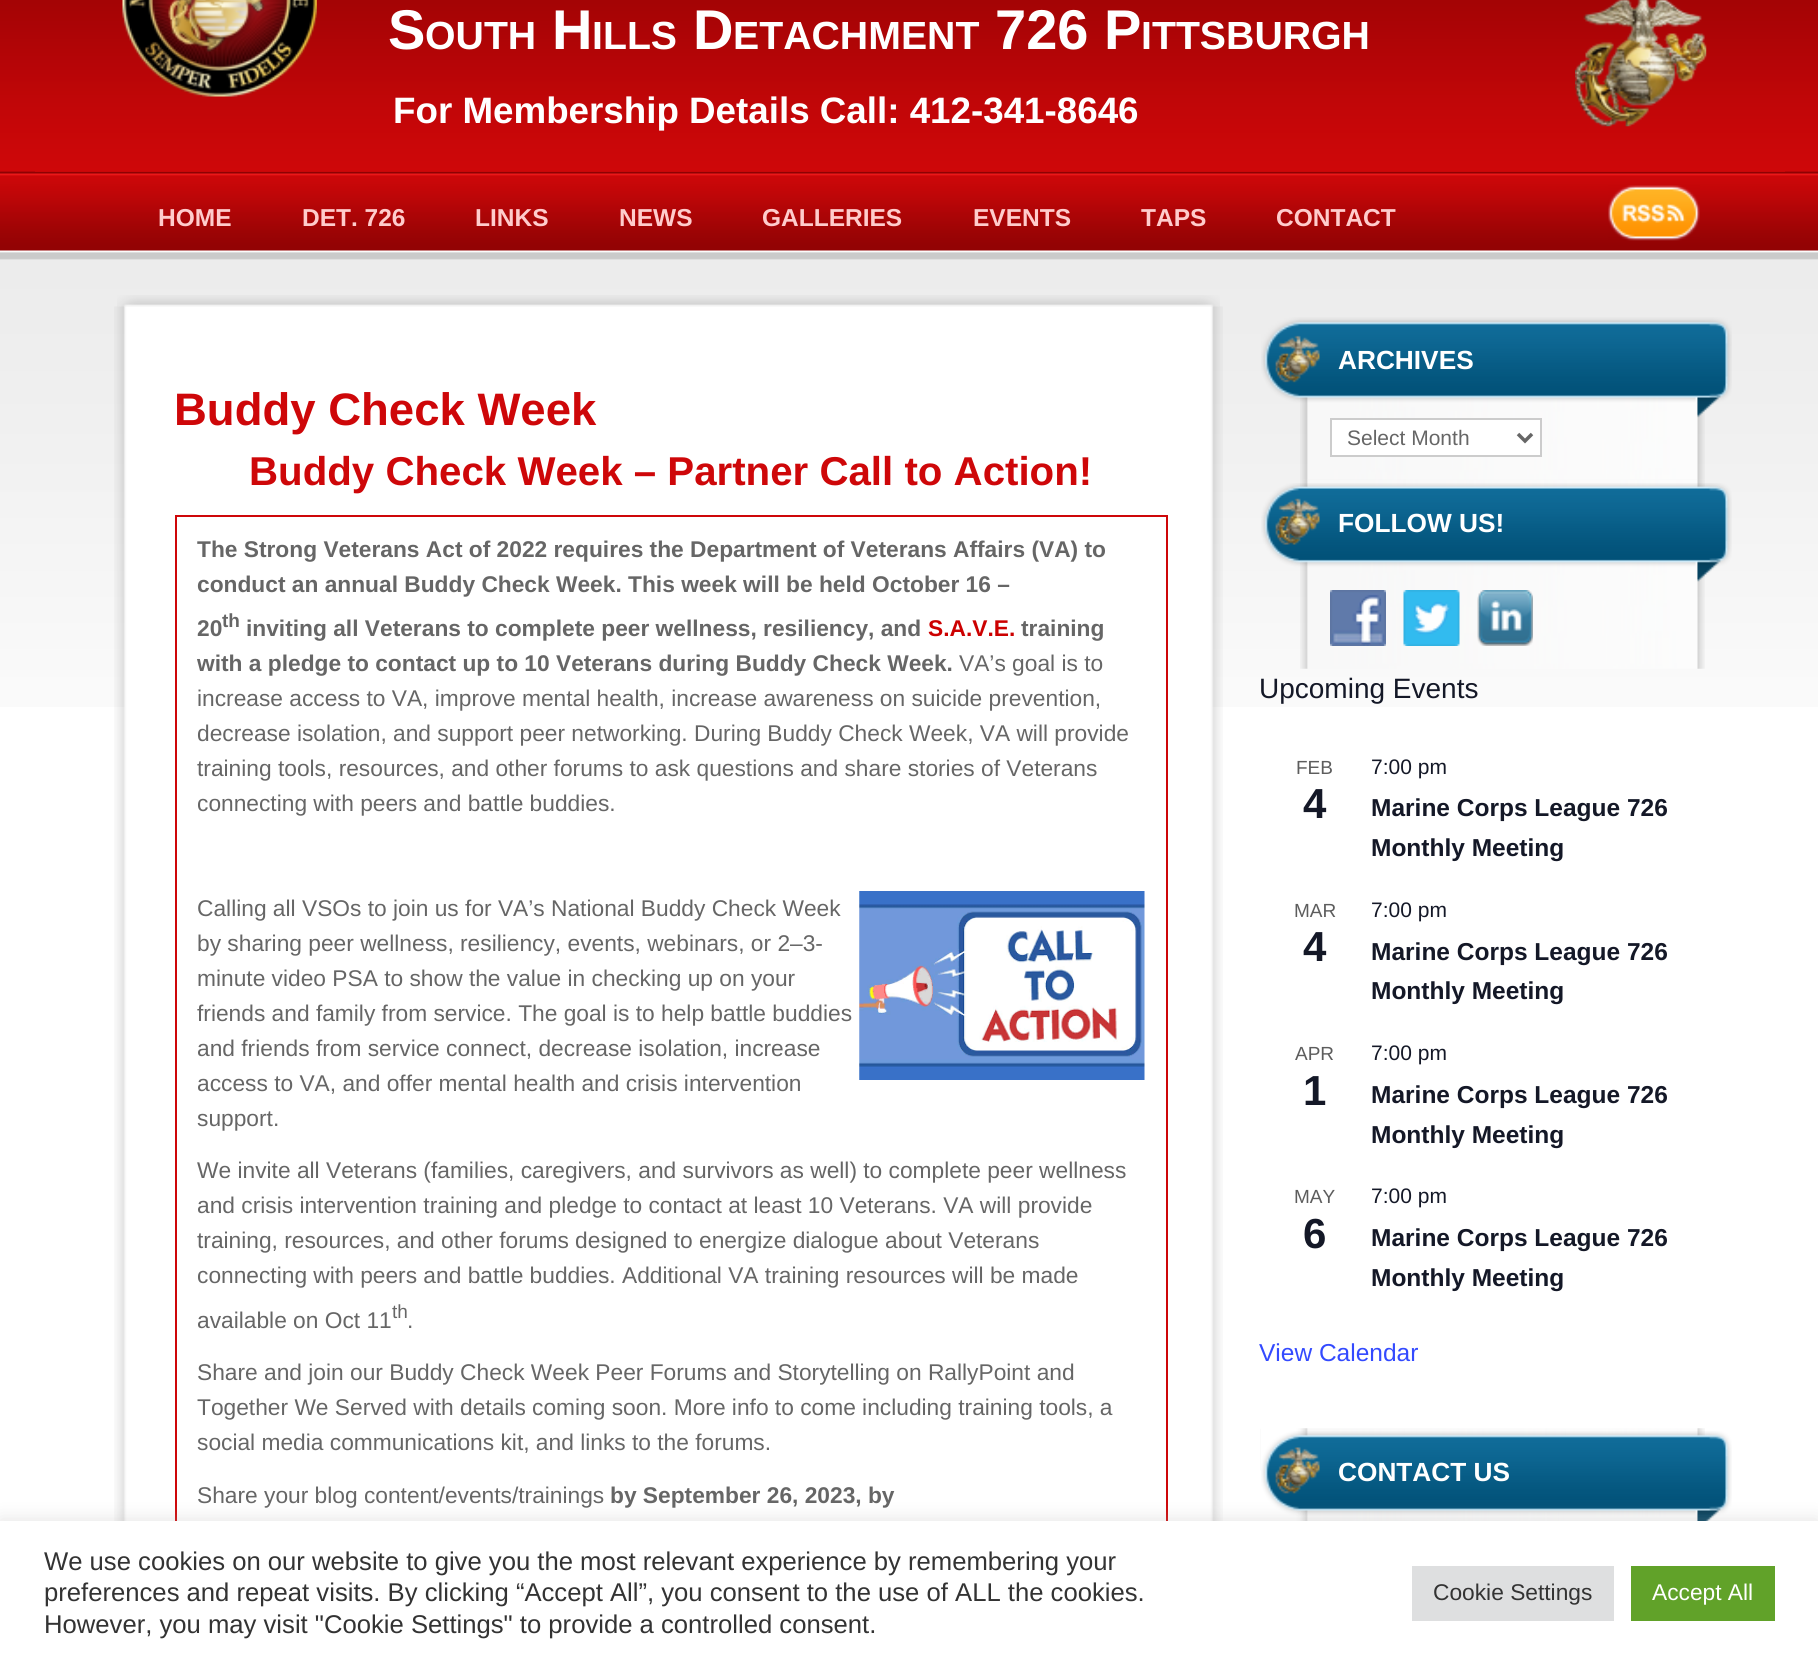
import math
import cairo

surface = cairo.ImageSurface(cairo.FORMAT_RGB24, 1818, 1663)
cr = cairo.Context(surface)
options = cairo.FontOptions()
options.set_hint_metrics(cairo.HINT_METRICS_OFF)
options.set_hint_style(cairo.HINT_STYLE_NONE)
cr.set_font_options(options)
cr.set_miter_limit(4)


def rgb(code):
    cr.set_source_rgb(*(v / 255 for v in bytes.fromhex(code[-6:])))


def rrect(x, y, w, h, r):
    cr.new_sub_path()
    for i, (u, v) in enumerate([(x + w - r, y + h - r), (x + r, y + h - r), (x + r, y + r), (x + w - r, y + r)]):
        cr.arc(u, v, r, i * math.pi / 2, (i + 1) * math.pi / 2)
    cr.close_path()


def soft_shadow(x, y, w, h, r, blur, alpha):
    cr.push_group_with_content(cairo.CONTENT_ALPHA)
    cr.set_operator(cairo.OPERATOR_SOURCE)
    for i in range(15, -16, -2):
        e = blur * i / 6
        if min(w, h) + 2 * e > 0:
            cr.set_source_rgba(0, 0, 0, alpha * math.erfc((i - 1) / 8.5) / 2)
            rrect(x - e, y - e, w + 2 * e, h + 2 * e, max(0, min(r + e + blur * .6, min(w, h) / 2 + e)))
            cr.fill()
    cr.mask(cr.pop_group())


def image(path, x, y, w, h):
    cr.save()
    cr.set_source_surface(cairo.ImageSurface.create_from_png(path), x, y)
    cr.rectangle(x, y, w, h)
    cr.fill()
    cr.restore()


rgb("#ffffff")
cr.paint()
image("img/1.png", 0, 0, 1818, 707)
rgb("#c80708")
cr.rectangle(35, 171, 1750, 1)
cr.fill()
image("img/2.png", 122, 0, 195, 97)
image("img/3.png", 1575, 0, 132, 127)
image("img/4.png", 1608, 185, 92, 56)
image("img/5.png", 117, 295, 1103, 12)
image("img/6.png", 114, 306, 1109, 1215)
for x, y, w, h, color in [
    (175, 515, 992, 2, "#ce0709"),
    (1166, 515, 2, 1006, "#ce0709"),
    (175, 515, 2, 1006, "#ce0709"),
]:
    rgb(color)
    cr.rectangle(x, y, w, h)
    cr.fill()
image("img/7.png", 859, 891, 286, 189)
image("img/8.png", 1300, 397, 405, 83)
image("img/9.png", 1261, 317, 471, 101)
rgb("#ffffff")
cr.rectangle(1331, 419, 210, 37)
cr.fill_preserve()
rgb("#cccccc")
cr.stroke()
cr.new_path()
cr.move_to(1518, 434)
cr.line_to(1525, 441)
cr.line_to(1532, 434)
rgb("#666666")
cr.set_line_width(3.5)
cr.stroke()
image("img/10.png", 1300, 479, 405, 190)
image("img/11.png", 1261, 483, 471, 99)
image("img/12.png", 1330, 590, 56, 56)
image("img/13.png", 1403, 590, 57, 56)
image("img/14.png", 1477, 590, 56, 56)
image("img/15.png", 1260, 1428, 445, 93)
image("img/16.png", 1261, 1431, 471, 90)
rgb("#acabab")
soft_shadow(0, 1519, 1818, 144, 0, 9, 0.3)
for x, y, w, h, color in [
    (0, 1521, 1818, 142, "#ffffff"),
    (1412, 1566, 202, 55, "#dedfe0"),
    (1631, 1566, 144, 55, "#61a229"),
]:
    rgb(color)
    cr.rectangle(x, y, w, h)
    cr.fill()
cr.select_font_face("Liberation Sans", cairo.FONT_SLANT_NORMAL, cairo.FONT_WEIGHT_BOLD)
cr.set_font_size(56)
rgb("#ffffff")
cr.move_to(388, 49)
cr.show_text("S")
cr.set_font_size(39.25)
cr.move_to(425, 49)
cr.show_text("OUTH")
cr.set_font_size(56)
cr.move_to(552, 49)
cr.show_text("H")
cr.set_font_size(39.25)
cr.move_to(592, 49)
cr.show_text("ILLS")
cr.set_font_size(56)
cr.move_to(693, 49)
cr.show_text("D")
cr.set_font_size(39.25)
cr.move_to(733, 49)
cr.show_text("ETACHMENT")
cr.set_font_size(56)
cr.move_to(995, 49)
cr.show_text("726 P")
cr.set_font_size(39.25)
cr.move_to(1141, 49)
cr.show_text("ITTSBURGH")
cr.set_font_size(36.75)
cr.move_to(393, 123)
cr.show_text("For Membership Details Call: 412-341-8646")
cr.set_font_size(24.5)
rgb("#ffcccc")
for x, y, s in [
    (158, 226, "HOME"),
    (302, 226, "DET. 726"),
    (475, 226, "LINKS"),
    (619, 226, "NEWS"),
    (762, 226, "GALLERIES"),
    (973, 226, "EVENTS"),
    (1141, 226, "TAPS"),
    (1276, 226, "CONTACT"),
]:
    cr.move_to(x, y)
    cr.show_text(s)
cr.set_font_size(45.5)
rgb("#ce0709")
cr.move_to(174, 425)
cr.show_text("Buddy Check Week")
cr.set_font_size(40.25)
cr.move_to(249, 485)
cr.show_text("Buddy Check Week – Partner Call to Action!")
cr.set_font_size(22.75)
rgb("#666666")
for x, y, s in [
    (197, 557, "The Strong Veterans Act of 2022 requires the Department of Veterans Affairs (VA) to"),
    (197, 592, "conduct an annual Buddy Check Week. This week will be held October 16 –"),
    (197, 636, "20"),
]:
    cr.move_to(x, y)
    cr.show_text(s)
cr.set_font_size(19)
cr.move_to(222, 627)
cr.show_text("th")
cr.set_font_size(22.75)
cr.move_to(246, 636)
cr.show_text("inviting all Veterans to complete peer wellness, resiliency, and")
rgb("#cc0000")
cr.move_to(928, 636)
cr.show_text("S.A.V.E.")
rgb("#666666")
cr.move_to(1021, 636)
cr.show_text("training")
cr.move_to(197, 671)
cr.show_text("with a pledge to contact up to 10 Veterans during Buddy Check Week.")
cr.select_font_face("Liberation Sans")
for x, y, s in [
    (959, 671, "VA’s goal is to"),
    (197, 706, "increase access to VA, improve mental health, increase awareness on suicide prevention,"),
    (197, 741, "decrease isolation, and support peer networking. During Buddy Check Week, VA will provide"),
    (197, 776, "training tools, resources, and other forums to ask questions and share stories of Veterans"),
    (197, 811, "connecting with peers and battle buddies."),
    (197, 916, "Calling all VSOs to join us for VA’s National Buddy Check Week"),
    (197, 951, "by sharing peer wellness, resiliency, events, webinars, or 2–3-"),
    (197, 986, "minute video PSA to show the value in checking up on your"),
    (197, 1021, "friends and family from service. The goal is to help battle buddies"),
    (197, 1056, "and friends from service connect, decrease isolation, increase"),
    (197, 1091, "access to VA, and offer mental health and crisis intervention"),
    (197, 1126, "support."),
    (197, 1178, "We invite all Veterans (families, caregivers, and survivors as well) to complete peer wellness"),
    (197, 1213, "and crisis intervention training and pledge to contact at least 10 Veterans. VA will provide"),
    (197, 1248, "training, resources, and other forums designed to energize dialogue about Veterans"),
    (197, 1283, "connecting with peers and battle buddies. Additional VA training resources will be made"),
    (197, 1328, "available on Oct 11"),
]:
    cr.move_to(x, y)
    cr.show_text(s)
cr.set_font_size(19)
cr.move_to(392, 1318)
cr.show_text("th")
cr.set_font_size(22.75)
for x, y, s in [
    (407, 1328, "."),
    (197, 1380, "Share and join our Buddy Check Week Peer Forums and Storytelling on RallyPoint and"),
    (197, 1415, "Together We Served with details coming soon. More info to come including training tools, a"),
    (197, 1450, "social media communications kit, and links to the forums."),
    (197, 1503, "Share your blog content/events/trainings"),
]:
    cr.move_to(x, y)
    cr.show_text(s)
cr.select_font_face("Liberation Sans", cairo.FONT_SLANT_NORMAL, cairo.FONT_WEIGHT_BOLD)
cr.move_to(610, 1503)
cr.show_text("by September 26, 2023, by")
cr.set_font_size(26.25)
rgb("#ffffff")
cr.move_to(1338, 369)
cr.show_text("ARCHIVES")
cr.select_font_face("Liberation Sans")
cr.set_font_size(21)
rgb("#666666")
cr.move_to(1347, 445)
cr.show_text("Select Month")
cr.select_font_face("Liberation Sans", cairo.FONT_SLANT_NORMAL, cairo.FONT_WEIGHT_BOLD)
cr.set_font_size(26.25)
rgb("#ffffff")
cr.move_to(1338, 532)
cr.show_text("FOLLOW US!")
cr.select_font_face("Liberation Sans")
cr.set_font_size(28)
rgb("#141827")
cr.move_to(1259, 698)
cr.show_text("Upcoming Events")
cr.set_font_size(19)
rgb("#5d5d5d")
cr.move_to(1296, 774)
cr.show_text("FEB")
cr.select_font_face("Liberation Sans", cairo.FONT_SLANT_NORMAL, cairo.FONT_WEIGHT_BOLD)
cr.set_font_size(42)
rgb("#141827")
cr.move_to(1303, 818)
cr.show_text("4")
cr.select_font_face("Liberation Sans")
cr.set_font_size(21)
cr.move_to(1371, 774)
cr.show_text("7:00 pm")
cr.select_font_face("Liberation Sans", cairo.FONT_SLANT_NORMAL, cairo.FONT_WEIGHT_BOLD)
cr.set_font_size(24.5)
cr.move_to(1371, 816)
cr.show_text("Marine Corps League 726")
cr.move_to(1371, 856)
cr.show_text("Monthly Meeting")
cr.select_font_face("Liberation Sans")
cr.set_font_size(19)
rgb("#5d5d5d")
cr.move_to(1294, 917)
cr.show_text("MAR")
cr.select_font_face("Liberation Sans", cairo.FONT_SLANT_NORMAL, cairo.FONT_WEIGHT_BOLD)
cr.set_font_size(42)
rgb("#141827")
cr.move_to(1303, 961)
cr.show_text("4")
cr.select_font_face("Liberation Sans")
cr.set_font_size(21)
cr.move_to(1371, 917)
cr.show_text("7:00 pm")
cr.select_font_face("Liberation Sans", cairo.FONT_SLANT_NORMAL, cairo.FONT_WEIGHT_BOLD)
cr.set_font_size(24.5)
cr.move_to(1371, 960)
cr.show_text("Marine Corps League 726")
cr.move_to(1371, 999)
cr.show_text("Monthly Meeting")
cr.select_font_face("Liberation Sans")
cr.set_font_size(19)
rgb("#5d5d5d")
cr.move_to(1295, 1060)
cr.show_text("APR")
cr.select_font_face("Liberation Sans", cairo.FONT_SLANT_NORMAL, cairo.FONT_WEIGHT_BOLD)
cr.set_font_size(42)
rgb("#141827")
cr.move_to(1303, 1105)
cr.show_text("1")
cr.select_font_face("Liberation Sans")
cr.set_font_size(21)
cr.move_to(1371, 1060)
cr.show_text("7:00 pm")
cr.select_font_face("Liberation Sans", cairo.FONT_SLANT_NORMAL, cairo.FONT_WEIGHT_BOLD)
cr.set_font_size(24.5)
cr.move_to(1371, 1103)
cr.show_text("Marine Corps League 726")
cr.move_to(1371, 1143)
cr.show_text("Monthly Meeting")
cr.select_font_face("Liberation Sans")
cr.set_font_size(19)
rgb("#5d5d5d")
cr.move_to(1294, 1203)
cr.show_text("MAY")
cr.select_font_face("Liberation Sans", cairo.FONT_SLANT_NORMAL, cairo.FONT_WEIGHT_BOLD)
cr.set_font_size(42)
rgb("#141827")
cr.move_to(1303, 1248)
cr.show_text("6")
cr.select_font_face("Liberation Sans")
cr.set_font_size(21)
cr.move_to(1371, 1203)
cr.show_text("7:00 pm")
cr.select_font_face("Liberation Sans", cairo.FONT_SLANT_NORMAL, cairo.FONT_WEIGHT_BOLD)
cr.set_font_size(24.5)
cr.move_to(1371, 1246)
cr.show_text("Marine Corps League 726")
cr.move_to(1371, 1286)
cr.show_text("Monthly Meeting")
cr.select_font_face("Liberation Sans")
rgb("#334aff")
cr.move_to(1259, 1361)
cr.show_text("View Calendar")
cr.select_font_face("Liberation Sans", cairo.FONT_SLANT_NORMAL, cairo.FONT_WEIGHT_BOLD)
cr.set_font_size(26.25)
rgb("#ffffff")
cr.move_to(1338, 1481)
cr.show_text("CONTACT US")
cr.select_font_face("Liberation Sans")
cr.set_font_size(25.65)
rgb("#333333")
for x, y, s in [
    (44, 1570, "We use cookies on our website to give you the most relevant experience by remembering your"),
    (44, 1601, "preferences and repeat visits. By clicking “Accept All”, you consent to the use of ALL the cookies."),
    (44, 1633, "However, you may visit \"Cookie Settings\" to provide a controlled consent."),
]:
    cr.move_to(x, y)
    cr.show_text(s)
cr.set_font_size(22.75)
cr.move_to(1433, 1600)
cr.show_text("Cookie Settings")
rgb("#ffffff")
cr.move_to(1652, 1600)
cr.show_text("Accept All")
surface.write_to_png("page.png")
